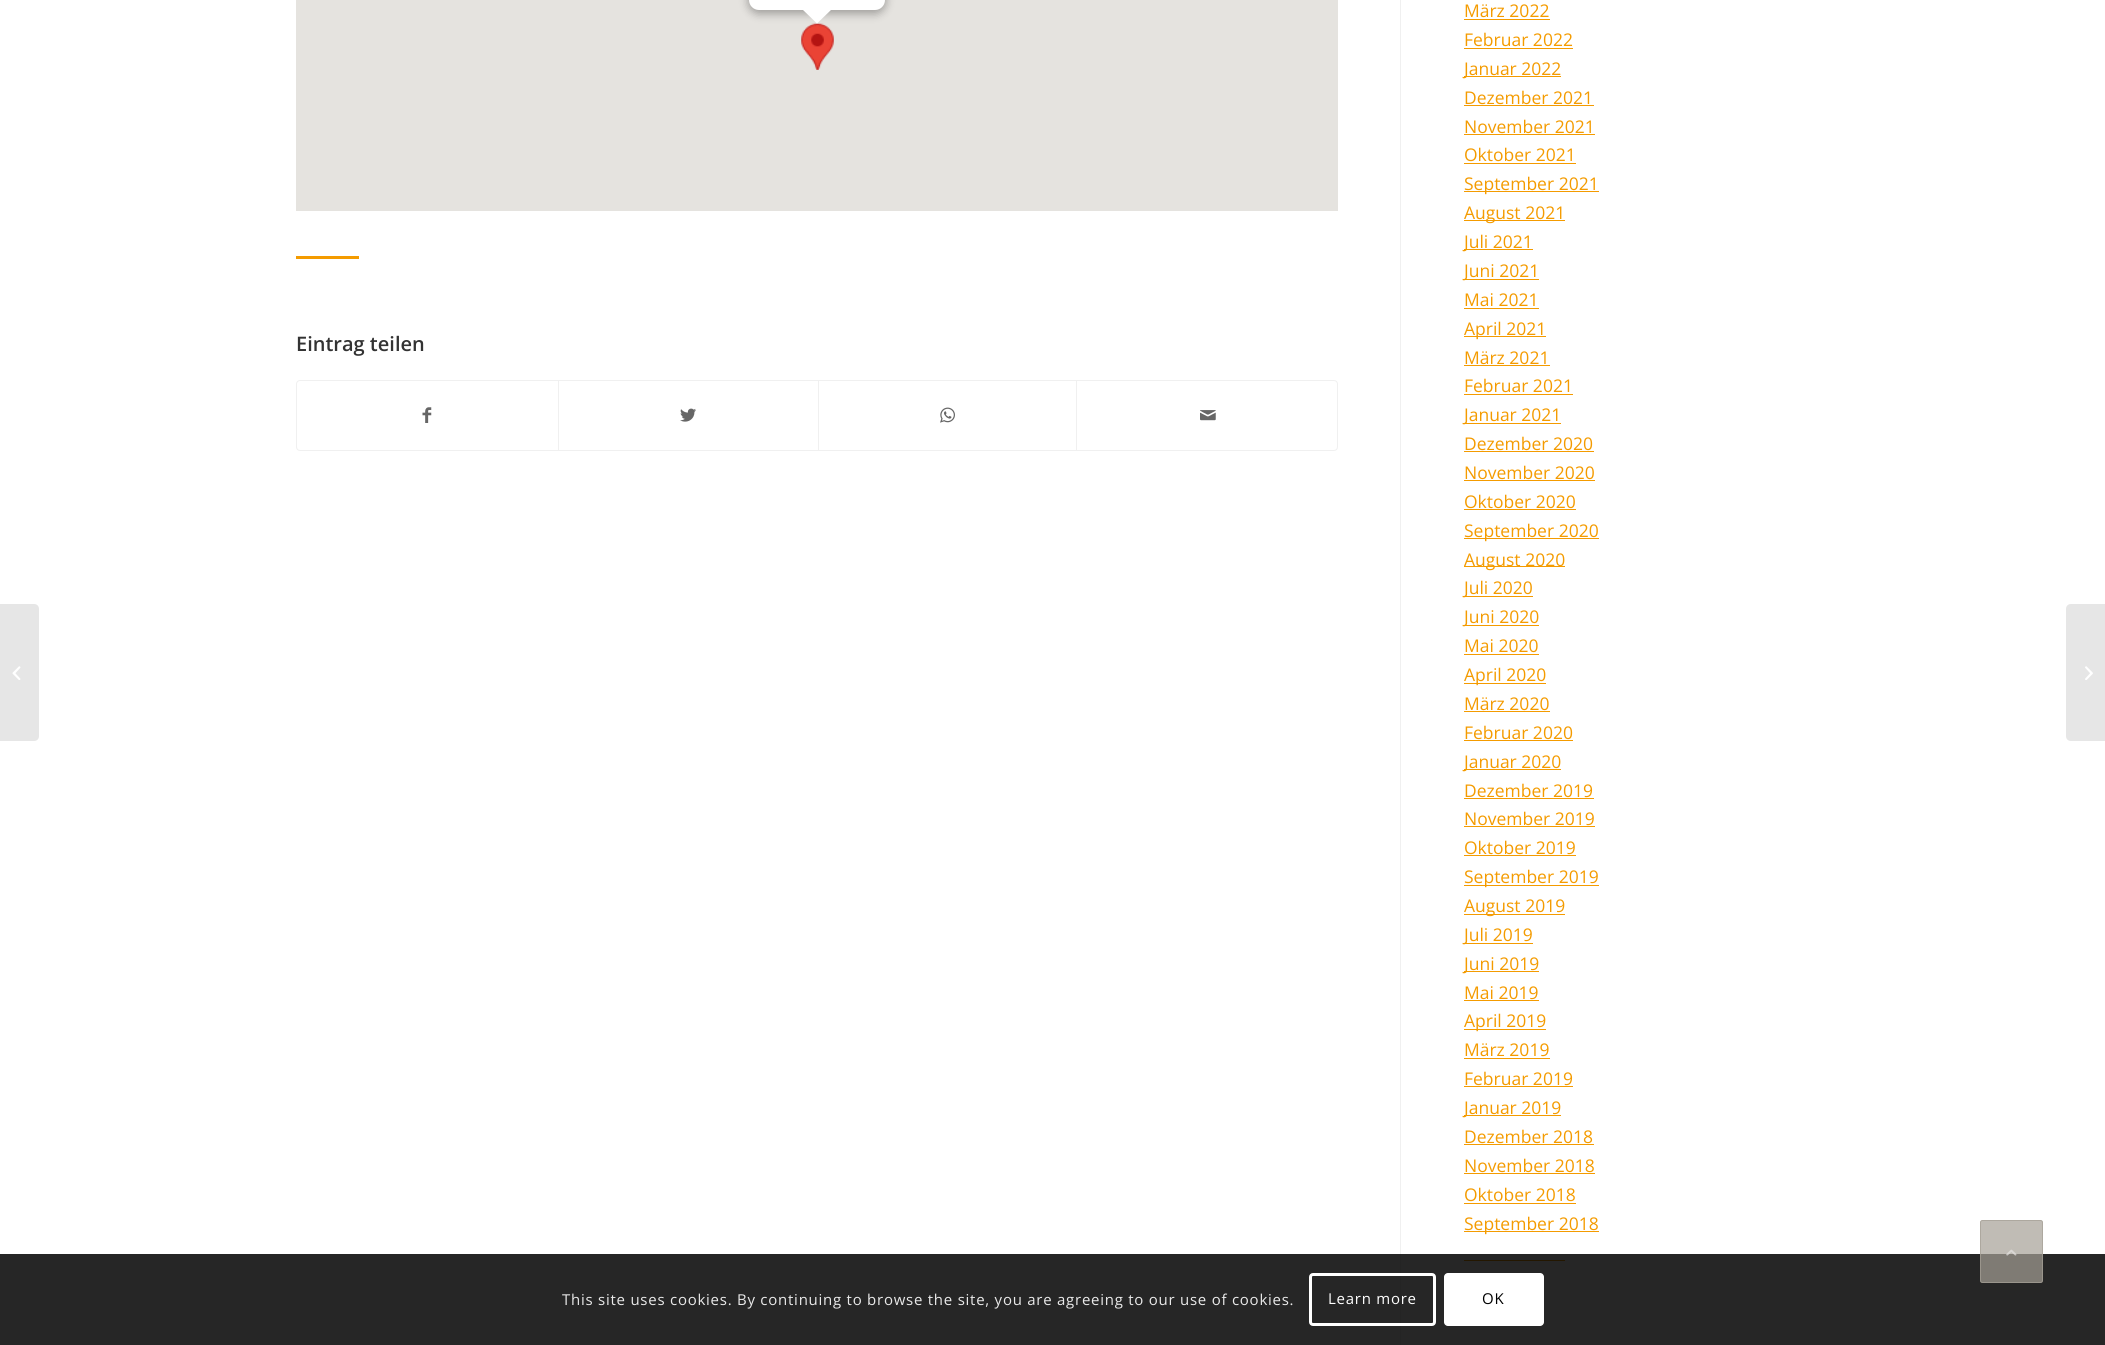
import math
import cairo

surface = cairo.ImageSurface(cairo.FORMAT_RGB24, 2105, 1345)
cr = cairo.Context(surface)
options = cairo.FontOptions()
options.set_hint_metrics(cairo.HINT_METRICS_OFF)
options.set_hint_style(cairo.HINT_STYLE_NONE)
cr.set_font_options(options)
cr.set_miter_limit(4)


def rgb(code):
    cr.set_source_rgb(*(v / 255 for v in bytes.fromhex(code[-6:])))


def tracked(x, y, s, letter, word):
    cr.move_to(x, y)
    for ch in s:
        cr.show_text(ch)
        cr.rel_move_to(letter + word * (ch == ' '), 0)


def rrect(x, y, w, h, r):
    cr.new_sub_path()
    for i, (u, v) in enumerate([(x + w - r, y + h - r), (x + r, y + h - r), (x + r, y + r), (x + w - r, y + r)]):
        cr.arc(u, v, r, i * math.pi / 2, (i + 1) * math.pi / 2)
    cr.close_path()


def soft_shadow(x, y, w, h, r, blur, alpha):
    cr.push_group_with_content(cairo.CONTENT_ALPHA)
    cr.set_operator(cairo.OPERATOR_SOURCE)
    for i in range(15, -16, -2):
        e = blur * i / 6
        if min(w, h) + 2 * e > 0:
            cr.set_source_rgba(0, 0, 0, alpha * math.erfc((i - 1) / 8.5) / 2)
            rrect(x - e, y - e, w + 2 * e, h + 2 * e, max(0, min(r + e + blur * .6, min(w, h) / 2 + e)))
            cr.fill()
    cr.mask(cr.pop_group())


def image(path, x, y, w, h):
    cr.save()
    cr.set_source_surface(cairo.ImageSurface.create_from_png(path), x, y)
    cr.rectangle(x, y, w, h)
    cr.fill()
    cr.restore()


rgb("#ffffff")
cr.paint()
rgb("#e6e6e6")
cr.new_path()
cr.move_to(0, 604)
cr.line_to(34, 604)
cr.curve_to(37, 604, 39, 606, 39, 609)
cr.line_to(39, 736)
cr.curve_to(39, 739, 37, 741, 34, 741)
cr.line_to(0, 741)
cr.close_path()
cr.fill()
image("img/1.png", 12, 666, 9, 14)
rgb("#e5e3df")
cr.rectangle(296, 0, 1042, 211)
cr.fill()
image("img/2.png", 801, 23, 33, 47)
rgb("#000000")
soft_shadow(748, -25, 138, 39, 11, 4.5, 0.3)
rgb("#ffffff")
rrect(749, -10, 136, 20, 10)
cr.fill()
cr.new_path()
cr.move_to(803, 9)
cr.line_to(803, 10)
cr.line_to(817, 23.5)
cr.line_to(832, 9)
cr.close_path()
cr.fill()
rgb("#f49b00")
cr.rectangle(296, 256, 63, 3)
cr.fill()
rrect(296.5, 380.5, 1041, 70, 3.5)
rgb("#f0f0f0")
cr.set_line_width(1)
cr.stroke()
image("img/3.png", 422, 407, 10, 16)
cr.rectangle(558, 381, 1, 69)
cr.fill()
image("img/4.png", 680, 408, 16, 14)
cr.rectangle(818, 381, 1, 69)
cr.fill()
image("img/5.png", 940, 407, 15, 16)
cr.rectangle(1076, 381, 1, 69)
cr.fill()
image("img/6.png", 1200, 410, 16, 11)
for x, y, w, h, color in [
    (1400, 0, 1, 1345, "#f0f0f0"),
    (1464, 19, 86, 1, "#f49b00"),
    (1464, 48, 109, 1, "#f49b00"),
    (1464, 76, 97, 1, "#f49b00"),
    (1464, 105, 130, 1, "#f49b00"),
    (1464, 134, 131, 1, "#f49b00"),
    (1464, 163, 112, 1, "#f49b00"),
    (1464, 191, 135, 1, "#f49b00"),
    (1464, 220, 101, 1, "#f49b00"),
    (1464, 249, 69, 1, "#f49b00"),
    (1464, 279, 75, 1, "#f49b00"),
    (1464, 308, 75, 1, "#f49b00"),
    (1464, 336, 82, 1, "#f49b00"),
    (1464, 365, 86, 1, "#f49b00"),
    (1464, 394, 109, 1, "#f49b00"),
    (1464, 423, 97, 1, "#f49b00"),
    (1464, 451, 130, 1, "#f49b00"),
    (1464, 480, 131, 1, "#f49b00"),
    (1464, 509, 112, 1, "#f49b00"),
    (1464, 538, 135, 1, "#f49b00"),
    (1464, 566, 101, 1, "#f49b00"),
    (1464, 596, 69, 1, "#f49b00"),
    (1464, 625, 75, 1, "#f49b00"),
    (1464, 654, 75, 1, "#f49b00"),
    (1464, 683, 82, 1, "#f49b00"),
    (1464, 711, 86, 1, "#f49b00"),
    (1464, 740, 109, 1, "#f49b00"),
    (1464, 769, 97, 1, "#f49b00"),
    (1464, 798, 130, 1, "#f49b00"),
    (1464, 826, 131, 1, "#f49b00"),
    (1464, 855, 112, 1, "#f49b00"),
    (1464, 885, 135, 1, "#f49b00"),
    (1464, 914, 101, 1, "#f49b00"),
    (1464, 943, 69, 1, "#f49b00"),
    (1464, 971, 75, 1, "#f49b00"),
    (1464, 1000, 75, 1, "#f49b00"),
    (1464, 1029, 82, 1, "#f49b00"),
    (1464, 1058, 86, 1, "#f49b00"),
    (1464, 1086, 109, 1, "#f49b00"),
    (1464, 1115, 97, 1, "#f49b00"),
    (1464, 1144, 130, 1, "#f49b00"),
    (1464, 1173, 131, 1, "#f49b00"),
    (1464, 1203, 112, 1, "#f49b00"),
    (1464, 1231, 135, 1, "#f49b00"),
    (1464, 1260, 101, 1, "#f49b00"),
]:
    rgb(color)
    cr.rectangle(x, y, w, h)
    cr.fill()
rgb("#e6e6e6")
cr.new_path()
cr.move_to(2071, 604)
cr.line_to(2105, 604)
cr.line_to(2105, 741)
cr.line_to(2071, 741)
cr.curve_to(2068, 741, 2066, 739, 2066, 736)
cr.line_to(2066, 609)
cr.curve_to(2066, 606, 2068, 604, 2071, 604)
cr.close_path()
cr.fill()
image("img/7.png", 2085, 666, 8, 14)
cr.set_source_rgba(0, 0, 0, 0.85)
cr.rectangle(0, 1254, 2105, 91)
cr.fill()
cr.set_source_rgba(0.651, 0.627, 0.588, 0.7)
rrect(1980, 1220, 63, 63, 2.5)
cr.fill()
rrect(1980.5, 1220.5, 62, 62, 2)
cr.stroke()
image("img/8.png", 2006, 1249, 11, 7)
rrect(1310.5, 1274.5, 124, 50, 2.5)
rgb("#ffffff")
cr.set_line_width(3)
cr.stroke()
rrect(1444, 1273, 100, 53, 4)
cr.fill()
cr.select_font_face("Open Sans SemiBold")
cr.set_font_size(20)
rgb("#333333")
cr.move_to(296, 351)
cr.show_text("Eintrag teilen")
cr.select_font_face("Open Sans")
cr.set_font_size(17.5)
rgb("#f49b00")
for x, y, s in [
    (1464, 17, "März 2022"),
    (1464, 46, "Februar 2022"),
    (1464, 75, "Januar 2022"),
    (1464, 104, "Dezember 2021"),
    (1464, 133, "November 2021"),
    (1464, 161, "Oktober 2021"),
    (1464, 190, "September 2021"),
    (1464, 219, "August 2021"),
    (1464, 248, "Juli 2021"),
    (1464, 277, "Juni 2021"),
    (1464, 306, "Mai 2021"),
    (1464, 335, "April 2021"),
    (1464, 364, "März 2021"),
    (1464, 392, "Februar 2021"),
    (1464, 421, "Januar 2021"),
    (1464, 450, "Dezember 2020"),
    (1464, 479, "November 2020"),
    (1464, 508, "Oktober 2020"),
    (1464, 537, "September 2020"),
    (1464, 566, "August 2020"),
    (1464, 594, "Juli 2020"),
    (1464, 623, "Juni 2020"),
    (1464, 652, "Mai 2020"),
    (1464, 681, "April 2020"),
    (1464, 710, "März 2020"),
    (1464, 739, "Februar 2020"),
    (1464, 768, "Januar 2020"),
    (1464, 797, "Dezember 2019"),
    (1464, 825, "November 2019"),
    (1464, 854, "Oktober 2019"),
    (1464, 883, "September 2019"),
    (1464, 912, "August 2019"),
    (1464, 941, "Juli 2019"),
    (1464, 970, "Juni 2019"),
    (1464, 999, "Mai 2019"),
    (1464, 1027, "April 2019"),
    (1464, 1056, "März 2019"),
    (1464, 1085, "Februar 2019"),
    (1464, 1114, "Januar 2019"),
    (1464, 1143, "Dezember 2018"),
    (1464, 1172, "November 2018"),
    (1464, 1201, "Oktober 2018"),
    (1464, 1230, "September 2018"),
]:
    cr.move_to(x, y)
    cr.show_text(s)
cr.set_font_size(15)
rgb("#e9e9e9")
tracked(562, 1305, "This site uses cookies. By continuing to browse the site, you are agreeing to our use of cookies.", 0.75, 0)
rgb("#ffffff")
tracked(1328, 1304, "Learn more", 0.75, 0)
rgb("#000000")
tracked(1482, 1304, "OK", 0.75, 0)
surface.write_to_png("page.png")
